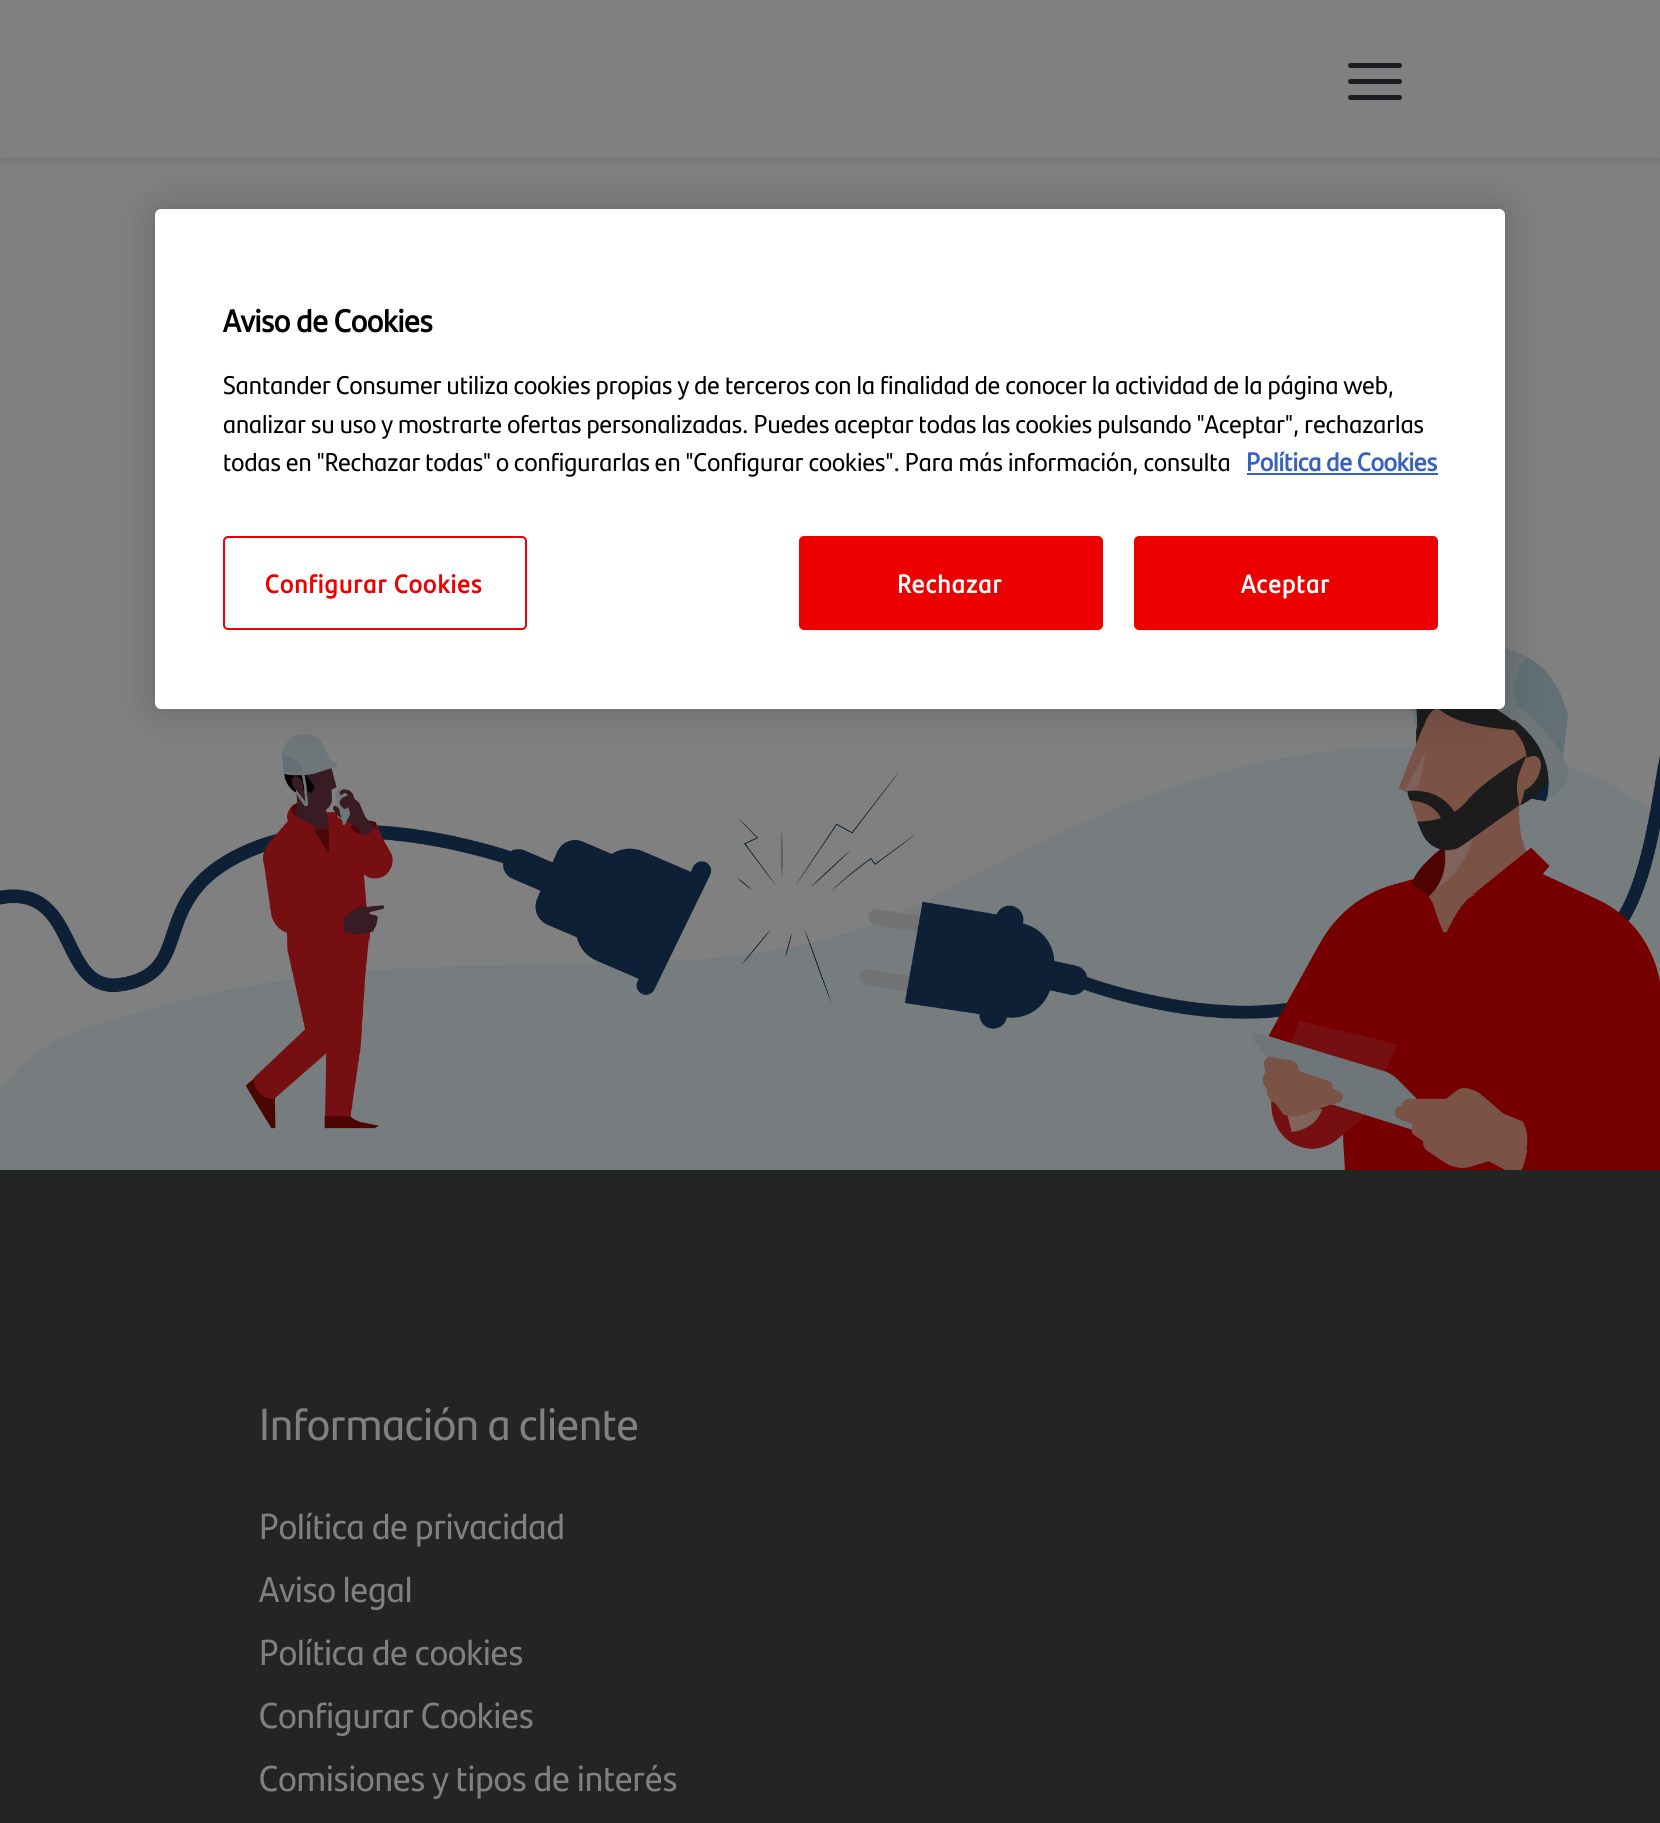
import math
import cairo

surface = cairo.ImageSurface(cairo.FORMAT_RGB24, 1660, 1823)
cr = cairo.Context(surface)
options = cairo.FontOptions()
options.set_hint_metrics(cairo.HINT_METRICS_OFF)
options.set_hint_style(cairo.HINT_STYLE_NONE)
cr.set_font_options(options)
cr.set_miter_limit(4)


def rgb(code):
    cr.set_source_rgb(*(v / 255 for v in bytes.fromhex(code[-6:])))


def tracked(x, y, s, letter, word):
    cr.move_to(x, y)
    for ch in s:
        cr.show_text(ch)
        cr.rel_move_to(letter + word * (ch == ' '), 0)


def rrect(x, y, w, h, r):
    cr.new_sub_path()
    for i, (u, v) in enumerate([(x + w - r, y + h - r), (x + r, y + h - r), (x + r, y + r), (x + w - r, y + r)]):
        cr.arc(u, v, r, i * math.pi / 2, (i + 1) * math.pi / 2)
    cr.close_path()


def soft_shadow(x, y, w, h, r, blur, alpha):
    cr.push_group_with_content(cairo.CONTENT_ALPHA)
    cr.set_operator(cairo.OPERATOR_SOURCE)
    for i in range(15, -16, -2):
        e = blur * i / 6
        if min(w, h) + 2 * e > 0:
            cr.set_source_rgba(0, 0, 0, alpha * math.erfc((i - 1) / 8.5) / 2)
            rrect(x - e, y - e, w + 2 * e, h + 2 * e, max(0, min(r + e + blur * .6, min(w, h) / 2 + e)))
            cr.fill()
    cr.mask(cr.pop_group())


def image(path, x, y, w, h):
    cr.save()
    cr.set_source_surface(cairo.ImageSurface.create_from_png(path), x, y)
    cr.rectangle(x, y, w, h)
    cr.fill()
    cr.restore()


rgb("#808080")
cr.paint()
rgb("#000000")
soft_shadow(0, 2, 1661, 158, 0, 4.5, 0.12)
rgb("#808080")
cr.rectangle(0, 0, 1660, 158)
cr.fill()
rgb("#1b1c20")
rrect(1348, 63, 54, 5, 2.5)
cr.fill()
rrect(1348, 79, 54, 5, 2.5)
cr.fill()
rrect(1348, 95, 54, 5, 2.5)
cr.fill()
image("img/1.png", 0, 643, 1660, 527)
rgb("#000000")
soft_shadow(155, 209, 1350, 500, 6, 20, 0.2)
rgb("#ffffff")
rrect(155, 209, 1350, 500, 6)
cr.fill()
rgb("#3860be")
cr.rectangle(1247, 473, 191, 2)
cr.fill()
rrect(224, 537, 302, 92, 4)
rgb("#ec0000")
cr.stroke()
rrect(800, 537, 302, 92, 4)
cr.fill_preserve()
cr.stroke()
rrect(1135, 537, 302, 92, 4)
cr.fill_preserve()
cr.stroke()
rgb("#242424")
cr.rectangle(0, 1170, 1660, 653)
cr.fill()
cr.select_font_face("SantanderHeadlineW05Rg", cairo.FONT_SLANT_NORMAL, cairo.FONT_WEIGHT_BOLD)
cr.set_font_size(31.5)
rgb("#000000")
cr.move_to(223, 332)
cr.show_text("Aviso de Cookies")
cr.select_font_face("SantanderHeadlineW05Rg")
cr.set_font_size(25.6)
for x, y, s in [
    (223, 394, "Santander Consumer utiliza cookies propias y de terceros con la finalidad de conocer la actividad de la página web,"),
    (223, 433, "analizar su uso y mostrarte ofertas personalizadas. Puedes aceptar todas las cookies pulsando \"Aceptar\", rechazarlas"),
    (223, 471, "todas en \"Rechazar todas\" o configurarlas en \"Configurar cookies\". Para más información, consulta"),
]:
    cr.move_to(x, y)
    cr.show_text(s)
cr.select_font_face("SantanderHeadlineW05Rg", cairo.FONT_SLANT_NORMAL, cairo.FONT_WEIGHT_BOLD)
rgb("#3860be")
cr.move_to(1246, 471)
cr.show_text("Política de Cookies")
rgb("#ec0000")
tracked(265, 593, "Configurar Cookies", 1.25, 0)
rgb("#ffffff")
tracked(897, 593, "Rechazar", 1.25, 0)
tracked(1241, 593, "Aceptar", 1.25, 0)
cr.select_font_face("SantanderHeadlineW05Rg")
cr.set_font_size(45)
rgb("#808080")
cr.move_to(259, 1440)
cr.show_text("Información a cliente")
cr.set_font_size(36)
for x, y, s in [
    (259, 1539, "Política de privacidad"),
    (259, 1602, "Aviso legal"),
    (259, 1665, "Política de cookies"),
    (259, 1728, "Configurar Cookies"),
    (259, 1791, "Comisiones y tipos de interés"),
]:
    cr.move_to(x, y)
    cr.show_text(s)
surface.write_to_png("page.png")
